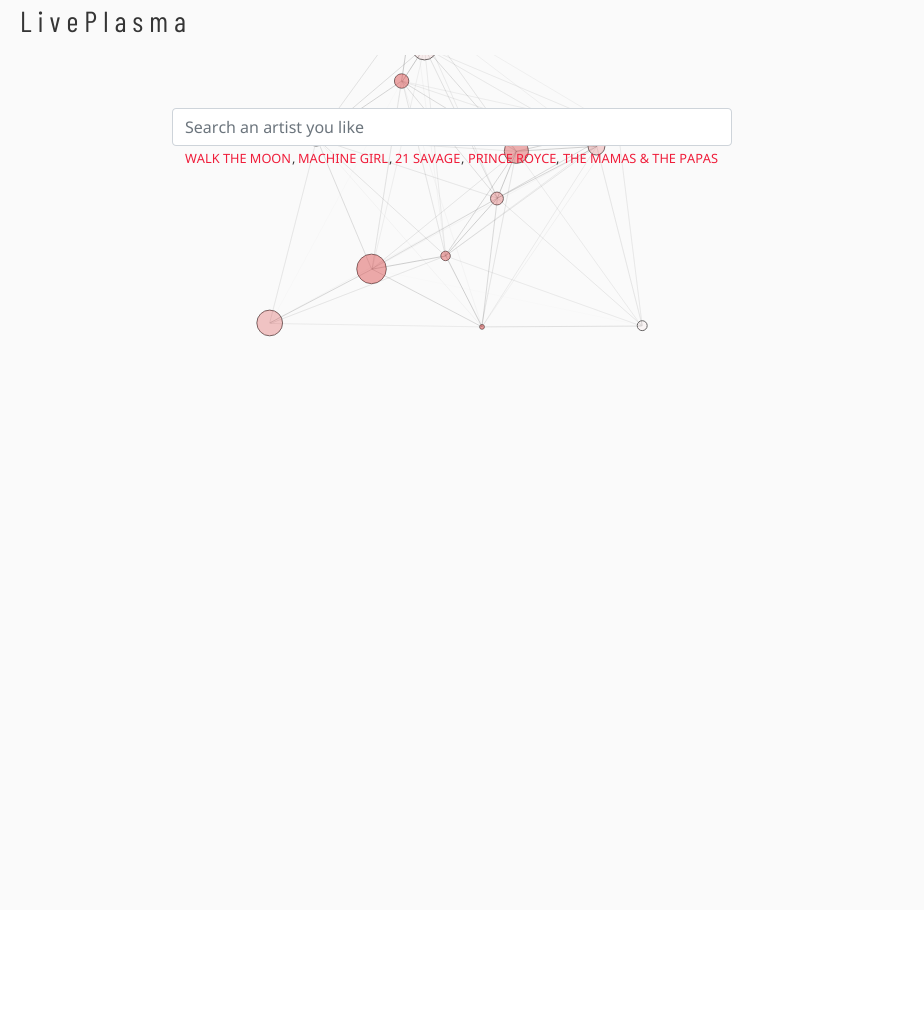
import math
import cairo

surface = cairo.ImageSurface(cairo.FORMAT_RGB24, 924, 1011)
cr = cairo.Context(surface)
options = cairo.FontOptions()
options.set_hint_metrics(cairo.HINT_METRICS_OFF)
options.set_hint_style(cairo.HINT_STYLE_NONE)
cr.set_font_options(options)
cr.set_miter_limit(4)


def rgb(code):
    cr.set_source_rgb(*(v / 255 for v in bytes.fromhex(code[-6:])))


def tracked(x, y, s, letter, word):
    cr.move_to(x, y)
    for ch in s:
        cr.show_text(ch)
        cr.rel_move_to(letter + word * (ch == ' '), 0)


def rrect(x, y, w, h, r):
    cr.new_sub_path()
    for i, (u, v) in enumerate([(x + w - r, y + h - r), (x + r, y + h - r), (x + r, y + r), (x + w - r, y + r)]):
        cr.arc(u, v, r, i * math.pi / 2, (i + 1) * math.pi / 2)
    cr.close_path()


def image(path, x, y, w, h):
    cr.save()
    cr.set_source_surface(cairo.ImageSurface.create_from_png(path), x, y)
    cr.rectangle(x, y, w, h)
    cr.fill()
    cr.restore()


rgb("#fafafa")
cr.paint()
image("img/1.png", 256, 55, 392, 282)
rgb("#ffffff")
rrect(172.5, 108.5, 559, 37, 3.5)
cr.fill_preserve()
rgb("#ced4da")
cr.set_line_width(1)
cr.stroke()
rgb("#ffffff")
cr.rectangle(0, 910, 924, 101)
cr.fill()
cr.select_font_face("Barlow Condensed")
cr.set_font_size(29)
rgb("#353535")
tracked(20, 32, "LivePlasma", 6, 0)
cr.select_font_face("Noto Sans")
cr.set_font_size(16)
rgb("#6c757d")
cr.move_to(185, 133)
cr.show_text("Search an artist you like")
cr.set_font_size(12.75)
rgb("#ef1d3a")
cr.move_to(185, 163)
cr.show_text("WALK THE MOON")
rgb("#353535")
cr.move_to(292, 163)
cr.show_text(",")
rgb("#ef1d3a")
cr.move_to(298, 163)
cr.show_text("MACHINE GIRL")
rgb("#353535")
cr.move_to(389, 163)
cr.show_text(",")
rgb("#ef1d3a")
cr.move_to(395, 163)
cr.show_text("21 SAVAGE")
rgb("#353535")
cr.move_to(461, 163)
cr.show_text(",")
rgb("#ef1d3a")
cr.move_to(468, 163)
cr.show_text("PRINCE ROYCE")
rgb("#353535")
cr.move_to(556, 163)
cr.show_text(",")
rgb("#ef1d3a")
cr.move_to(563, 163)
cr.show_text("THE MAMAS & THE PAPAS")
surface.write_to_png("page.png")
